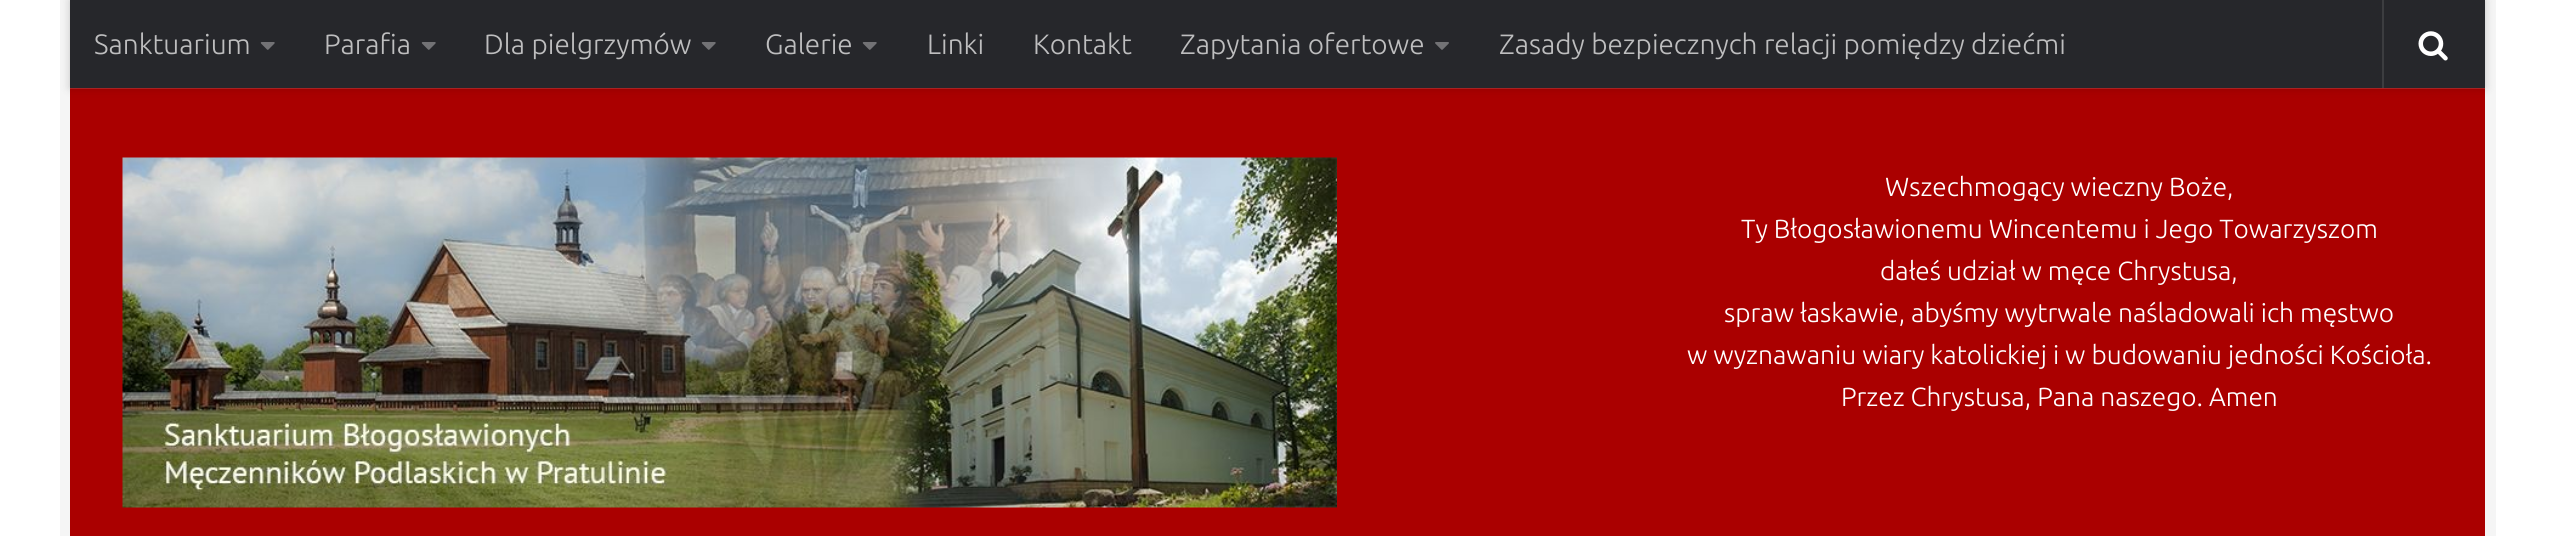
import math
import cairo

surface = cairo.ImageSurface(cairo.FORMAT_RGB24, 2553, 536)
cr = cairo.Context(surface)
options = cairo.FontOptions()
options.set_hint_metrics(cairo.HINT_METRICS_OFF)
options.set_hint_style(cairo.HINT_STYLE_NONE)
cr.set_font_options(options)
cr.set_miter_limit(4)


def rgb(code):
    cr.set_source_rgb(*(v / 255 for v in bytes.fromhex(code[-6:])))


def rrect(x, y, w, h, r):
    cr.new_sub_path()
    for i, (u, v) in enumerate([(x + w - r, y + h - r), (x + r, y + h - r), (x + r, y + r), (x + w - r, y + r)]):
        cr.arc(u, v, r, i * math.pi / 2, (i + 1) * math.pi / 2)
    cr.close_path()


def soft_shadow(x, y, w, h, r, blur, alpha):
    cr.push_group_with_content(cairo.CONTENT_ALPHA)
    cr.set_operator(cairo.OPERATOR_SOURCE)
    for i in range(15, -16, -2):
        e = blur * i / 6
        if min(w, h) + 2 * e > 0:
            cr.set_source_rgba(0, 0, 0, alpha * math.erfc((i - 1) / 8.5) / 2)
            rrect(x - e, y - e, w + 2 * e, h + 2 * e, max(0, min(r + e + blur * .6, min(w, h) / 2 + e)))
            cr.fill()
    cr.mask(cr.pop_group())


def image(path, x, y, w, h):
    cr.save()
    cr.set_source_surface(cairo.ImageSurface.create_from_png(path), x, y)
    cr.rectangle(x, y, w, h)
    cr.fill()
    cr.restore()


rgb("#ffffff")
cr.paint()
rgb("#f5f5f5")
cr.new_path()
cr.move_to(60, 0)
cr.line_to(60, 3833)
cr.line_to(2475, 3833)
cr.line_to(2475, 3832)
cr.line_to(70, 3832)
cr.line_to(70, 0)
cr.close_path()
cr.fill()
cr.new_path()
cr.move_to(81, 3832)
cr.line_to(81, 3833)
cr.line_to(2496, 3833)
cr.line_to(2496, 0)
cr.line_to(2485, 0)
cr.line_to(2485, 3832)
cr.close_path()
cr.fill()
rgb("#aa0000")
cr.rectangle(70, 89, 2415, 447)
cr.fill()
rgb("#b72626")
cr.rectangle(70, 88, 2415, 1)
cr.fill()
rgb("#000000")
soft_shadow(70, 0, 2415, 88, 0, 4.5, 0.2)
rgb("#26272b")
cr.rectangle(70, 0, 2415, 88)
cr.fill()
image("img/1.png", 260, 42, 15, 8)
image("img/1.png", 421, 42, 15, 8)
image("img/1.png", 701, 42, 15, 8)
image("img/1.png", 862, 42, 15, 8)
image("img/2.png", 1435, 42, 14, 8)
rgb("#3c3d40")
cr.new_path()
cr.move_to(2382, 0)
cr.line_to(2382, 88)
cr.line_to(2483, 88)
cr.line_to(2384, 88)
cr.line_to(2384, 0)
cr.close_path()
cr.fill()
image("img/3.png", 2418, 31, 30, 30)
image("img/4.png", 122, 157, 1215, 351)
cr.select_font_face("Ubuntu Light")
cr.set_font_size(28)
rgb("#bebebf")
for x, y, s in [
    (94, 54, "Sanktuarium"),
    (324, 54, "Parafia"),
    (484, 54, "Dla pielgrzymów"),
    (765, 54, "Galerie"),
    (927, 54, "Linki"),
    (1033, 54, "Kontakt"),
    (1180, 54, "Zapytania ofertowe"),
    (1499, 54, "Zasady bezpiecznych relacji pomiędzy dziećmi"),
]:
    cr.move_to(x, y)
    cr.show_text(s)
cr.set_font_size(26.25)
rgb("#ffffff")
for x, y, s in [
    (1885, 196, "Wszechmogący wieczny Boże,"),
    (1741, 238, "Ty Błogosławionemu Wincentemu i Jego Towarzyszom"),
    (1880, 280, "dałeś udział w męce Chrystusa,"),
    (1724, 322, "spraw łaskawie, abyśmy wytrwale naśladowali ich męstwo"),
    (1687, 364, "w wyznawaniu wiary katolickiej i w budowaniu jedności Kościoła."),
    (1841, 406, "Przez Chrystusa, Pana naszego. Amen"),
]:
    cr.move_to(x, y)
    cr.show_text(s)
surface.write_to_png("page.png")
